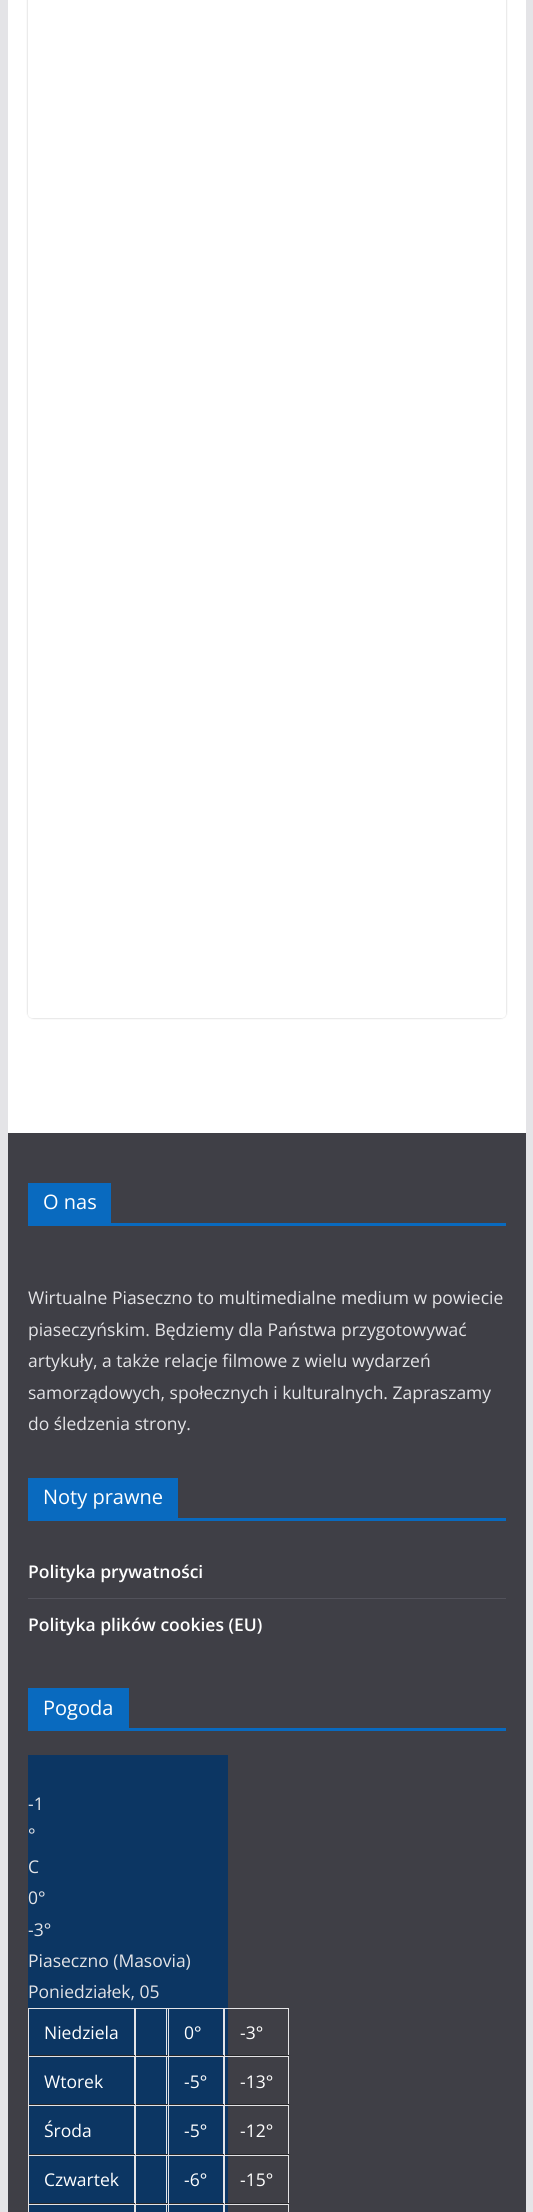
import math
import cairo

surface = cairo.ImageSurface(cairo.FORMAT_RGB24, 533, 2212)
cr = cairo.Context(surface)
options = cairo.FontOptions()
options.set_hint_metrics(cairo.HINT_METRICS_OFF)
options.set_hint_style(cairo.HINT_STYLE_NONE)
cr.set_font_options(options)
cr.set_miter_limit(4)


def rgb(code):
    cr.set_source_rgb(*(v / 255 for v in bytes.fromhex(code[-6:])))


def rrect(x, y, w, h, r):
    cr.new_sub_path()
    for i, (u, v) in enumerate([(x + w - r, y + h - r), (x + r, y + h - r), (x + r, y + r), (x + w - r, y + r)]):
        cr.arc(u, v, r, i * math.pi / 2, (i + 1) * math.pi / 2)
    cr.close_path()


def soft_shadow(x, y, w, h, r, blur, alpha):
    cr.push_group_with_content(cairo.CONTENT_ALPHA)
    cr.set_operator(cairo.OPERATOR_SOURCE)
    for i in range(15, -16, -2):
        e = blur * i / 6
        if min(w, h) + 2 * e > 0:
            cr.set_source_rgba(0, 0, 0, alpha * math.erfc((i - 1) / 8.5) / 2)
            rrect(x - e, y - e, w + 2 * e, h + 2 * e, max(0, min(r + e + blur * .6, min(w, h) / 2 + e)))
            cr.fill()
    cr.mask(cr.pop_group())


rgb("#e4e4e7")
cr.paint()
rgb("#ffffff")
cr.rectangle(8, 0, 518, 1133)
cr.fill()
cr.save()
cr.set_fill_rule(cairo.FILL_RULE_EVEN_ODD)
cr.new_path()
cr.move_to(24, 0)
cr.line_to(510, 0)
cr.line_to(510, 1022)
cr.line_to(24, 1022)
cr.close_path()
cr.move_to(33, -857)
cr.line_to(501, -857)
cr.curve_to(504, -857, 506, -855, 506, -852)
cr.line_to(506, 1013)
cr.curve_to(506, 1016, 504, 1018, 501, 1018)
cr.line_to(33, 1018)
cr.curve_to(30, 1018, 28, 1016, 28, 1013)
cr.line_to(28, -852)
cr.curve_to(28, -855, 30, -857, 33, -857)
cr.close_path()
cr.clip()
rgb("#000000")
soft_shadow(28, -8, 478, 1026, 5, 1, 0.24)
cr.restore()
for x, y, w, h, color in [
    (8, 1133, 518, 1079, "#3f3f46"),
    (28, 1223, 478, 3, "#096abf"),
    (28, 1183, 83, 40, "#096abf"),
    (28, 1518, 478, 3, "#096abf"),
    (28, 1478, 150, 40, "#096abf"),
    (28, 1598, 478, 1, "#52525b"),
    (28, 1728, 478, 3, "#096abf"),
    (28, 1688, 101, 40, "#096abf"),
    (28, 1755, 200, 457, "#0c3663"),
    (28, 2008, 261, 1, "#e4e4e7"),
    (134, 2008, 1, 48, "#e4e4e7"),
    (28, 2055, 107, 1, "#27272a"),
    (28, 2008, 1, 48, "#e4e4e7"),
    (166, 2008, 1, 48, "#e4e4e7"),
    (135, 2055, 33, 1, "#27272a"),
    (135, 2008, 1, 48, "#e4e4e7"),
    (223, 2008, 1, 48, "#e4e4e7"),
    (168, 2055, 56, 1, "#27272a"),
    (168, 2008, 1, 48, "#e4e4e7"),
    (288, 2008, 1, 48, "#e4e4e7"),
    (224, 2055, 65, 1, "#27272a"),
    (224, 2008, 1, 48, "#e4e4e7"),
    (28, 2056, 261, 1, "#e4e4e7"),
    (134, 2056, 1, 49, "#e4e4e7"),
    (28, 2104, 107, 1, "#27272a"),
    (28, 2056, 1, 49, "#e4e4e7"),
    (166, 2056, 1, 49, "#e4e4e7"),
    (135, 2104, 33, 1, "#27272a"),
    (135, 2056, 1, 49, "#e4e4e7"),
    (223, 2056, 1, 49, "#e4e4e7"),
    (168, 2104, 56, 1, "#27272a"),
    (168, 2056, 1, 49, "#e4e4e7"),
    (288, 2056, 1, 49, "#e4e4e7"),
    (224, 2104, 65, 1, "#27272a"),
    (224, 2056, 1, 49, "#e4e4e7"),
    (28, 2105, 261, 1, "#e4e4e7"),
    (134, 2105, 1, 50, "#e4e4e7"),
    (28, 2154, 107, 1, "#27272a"),
    (28, 2105, 1, 50, "#e4e4e7"),
    (166, 2105, 1, 50, "#e4e4e7"),
    (135, 2154, 33, 1, "#27272a"),
    (135, 2105, 1, 50, "#e4e4e7"),
    (223, 2105, 1, 50, "#e4e4e7"),
    (168, 2154, 56, 1, "#27272a"),
    (168, 2105, 1, 50, "#e4e4e7"),
    (288, 2105, 1, 50, "#e4e4e7"),
    (224, 2154, 65, 1, "#27272a"),
    (224, 2105, 1, 50, "#e4e4e7"),
    (28, 2155, 261, 1, "#e4e4e7"),
    (134, 2155, 1, 49, "#e4e4e7"),
    (28, 2203, 107, 1, "#27272a"),
    (28, 2155, 1, 49, "#e4e4e7"),
    (166, 2155, 1, 49, "#e4e4e7"),
    (135, 2203, 33, 1, "#27272a"),
    (135, 2155, 1, 49, "#e4e4e7"),
    (223, 2155, 1, 49, "#e4e4e7"),
    (168, 2203, 56, 1, "#27272a"),
    (168, 2155, 1, 49, "#e4e4e7"),
    (288, 2155, 1, 49, "#e4e4e7"),
    (224, 2203, 65, 1, "#27272a"),
    (224, 2155, 1, 49, "#e4e4e7"),
    (28, 2204, 261, 1, "#e4e4e7"),
    (134, 2204, 2, 8, "#e4e4e7"),
    (28, 2204, 1, 8, "#e4e4e7"),
    (166, 2204, 1, 8, "#e4e4e7"),
    (223, 2204, 2, 8, "#e4e4e7"),
    (168, 2204, 1, 8, "#e4e4e7"),
    (288, 2204, 1, 8, "#e4e4e7"),
]:
    rgb(color)
    cr.rectangle(x, y, w, h)
    cr.fill()
cr.select_font_face("Open Sans")
cr.set_font_size(20)
rgb("#ffffff")
cr.move_to(43, 1209)
cr.show_text("O nas")
cr.set_font_size(17.5)
rgb("#e4e4e7")
for x, y, s in [
    (28, 1304, "Wirtualne Piaseczno to multimedialne medium w powiecie"),
    (28, 1336, "piaseczyńskim. Będziemy dla Państwa przygotowywać"),
    (28, 1367, "artykuły, a także relacje filmowe z wielu wydarzeń"),
    (28, 1399, "samorządowych, społecznych i kulturalnych. Zapraszamy"),
    (28, 1430, "do śledzenia strony."),
]:
    cr.move_to(x, y)
    cr.show_text(s)
cr.set_font_size(20)
rgb("#ffffff")
cr.move_to(43, 1504)
cr.show_text("Noty prawne")
cr.select_font_face("Open Sans SemiBold")
cr.set_font_size(17.5)
cr.move_to(28, 1578)
cr.show_text("Polityka prywatności")
cr.move_to(28, 1631)
cr.show_text("Polityka plików cookies (EU)")
cr.select_font_face("Open Sans")
cr.set_font_size(20)
cr.move_to(43, 1715)
cr.show_text("Pogoda")
cr.set_font_size(17.5)
rgb("#e4e4e7")
for x, y, s in [
    (28, 1810, "-1"),
    (28, 1841, "°"),
    (28, 1873, "C"),
    (28, 1904, "0°"),
    (28, 1936, "-3°"),
    (28, 1967, "Piaseczno (Masovia)"),
    (28, 1998, "Poniedziałek, 05"),
]:
    cr.move_to(x, y)
    cr.show_text(s)
rgb("#ffffff")
for x, y, s in [
    (44, 2039, "Niedziela"),
    (184, 2039, "0°"),
    (240, 2039, "-3°"),
    (44, 2088, "Wtorek"),
    (184, 2088, "-5°"),
    (240, 2088, "-13°"),
    (44, 2137, "Środa"),
    (184, 2137, "-5°"),
    (240, 2137, "-12°"),
    (44, 2186, "Czwartek"),
    (184, 2186, "-6°"),
    (240, 2186, "-15°"),
]:
    cr.move_to(x, y)
    cr.show_text(s)
surface.write_to_png("page.png")
